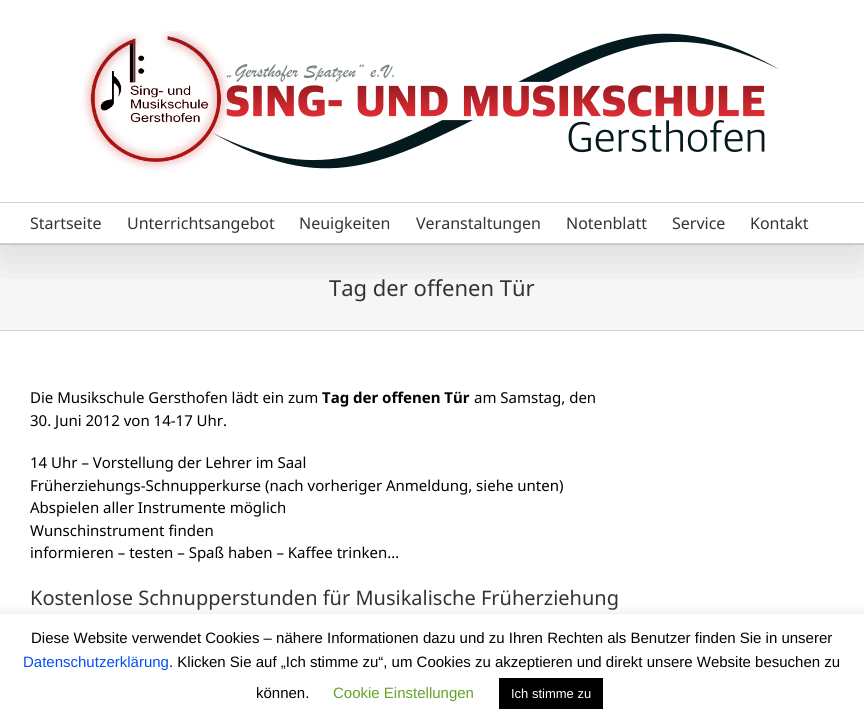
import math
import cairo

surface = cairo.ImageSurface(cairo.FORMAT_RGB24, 864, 726)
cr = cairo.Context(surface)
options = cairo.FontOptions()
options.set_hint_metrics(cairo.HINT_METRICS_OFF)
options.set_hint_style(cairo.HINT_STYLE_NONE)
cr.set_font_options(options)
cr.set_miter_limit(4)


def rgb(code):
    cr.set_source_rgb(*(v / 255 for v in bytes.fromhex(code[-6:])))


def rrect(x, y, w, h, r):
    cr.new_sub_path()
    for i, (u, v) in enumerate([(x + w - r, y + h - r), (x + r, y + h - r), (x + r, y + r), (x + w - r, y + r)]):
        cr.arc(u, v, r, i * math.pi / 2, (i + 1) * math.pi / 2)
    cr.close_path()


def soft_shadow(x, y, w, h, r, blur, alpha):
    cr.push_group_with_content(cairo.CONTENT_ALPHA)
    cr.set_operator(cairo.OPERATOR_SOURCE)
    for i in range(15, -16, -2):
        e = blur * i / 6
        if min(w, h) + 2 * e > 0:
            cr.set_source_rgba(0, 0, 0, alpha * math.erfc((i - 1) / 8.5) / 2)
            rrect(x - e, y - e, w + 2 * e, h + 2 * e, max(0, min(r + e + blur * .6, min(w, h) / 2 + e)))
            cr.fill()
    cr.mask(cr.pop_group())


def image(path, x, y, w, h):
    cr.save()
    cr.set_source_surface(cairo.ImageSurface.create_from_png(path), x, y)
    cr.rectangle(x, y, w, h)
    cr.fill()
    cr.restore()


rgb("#ffffff")
cr.paint()
rgb("#f6f6f6")
cr.rectangle(0, 245, 864, 85)
cr.fill()
rgb("#d2d3d4")
cr.rectangle(0, 244, 864, 1)
cr.fill()
cr.save()
cr.rectangle(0, 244, 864, 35)
cr.clip()
rgb("#000000")
soft_shadow(2, 12, 860, 240, 0, 25, 0.14)
cr.restore()
rgb("#d3d3d3")
cr.rectangle(0, 202, 864, 1)
cr.fill()
image("img/1.png", 82, 31, 698, 140)
cr.rectangle(0, 243, 864, 1)
cr.fill()
rgb("#d2d3d4")
cr.rectangle(0, 330, 864, 1)
cr.fill()
rgb("#acabab")
soft_shadow(0, 613, 864, 112, 0, 5, 0.3)
rgb("#ffffff")
cr.rectangle(0, 614, 864, 112)
cr.fill()
rgb("#000000")
cr.rectangle(499, 678, 104, 31)
cr.fill()
cr.select_font_face("Noto Sans")
cr.set_font_size(16)
rgb("#333333")
for x, y, s in [
    (30, 229, "Startseite"),
    (127, 229, "Unterrichtsangebot"),
    (299, 229, "Neuigkeiten"),
    (416, 229, "Veranstaltungen"),
    (566, 229, "Notenblatt"),
    (672, 229, "Service"),
    (750, 229, "Kontakt"),
]:
    cr.move_to(x, y)
    cr.show_text(s)
cr.set_font_size(22)
cr.move_to(329, 296)
cr.show_text("Tag der offenen Tür")
cr.set_font_size(15)
rgb("#000000")
cr.move_to(30, 403)
cr.show_text("Die Musikschule Gersthofen lädt ein zum")
cr.select_font_face("Noto Sans", cairo.FONT_SLANT_NORMAL, cairo.FONT_WEIGHT_BOLD)
cr.move_to(322, 403)
cr.show_text("Tag der offenen Tür")
cr.select_font_face("Noto Sans")
for x, y, s in [
    (474, 403, "am Samstag, den"),
    (30, 426, "30. Juni 2012 von 14-17 Uhr."),
    (30, 468, "14 Uhr – Vorstellung der Lehrer im Saal"),
    (30, 491, "Früherziehungs-Schnupperkurse (nach vorheriger Anmeldung, siehe unten)"),
    (30, 513, "Abspielen aller Instrumente möglich"),
    (30, 536, "Wunschinstrument finden"),
    (30, 558, "informieren – testen – Spaß haben – Kaffee trinken…"),
]:
    cr.move_to(x, y)
    cr.show_text(s)
cr.set_font_size(20)
rgb("#333333")
cr.move_to(30, 605)
cr.show_text("Kostenlose Schnupperstunden für Musikalische Früherziehung")
cr.select_font_face("Liberation Sans")
cr.set_font_size(15)
rgb("#000000")
cr.move_to(31, 643)
cr.show_text("Diese Website verwendet Cookies – nähere Informationen dazu und zu Ihren Rechten als Benutzer finden Sie in unserer")
rgb("#024ff4")
cr.move_to(23, 667)
cr.show_text("Datenschutzerklärung")
rgb("#000000")
cr.move_to(169, 667)
cr.show_text(". Klicken Sie auf „Ich stimme zu“, um Cookies zu akzeptieren und direkt unsere Website besuchen zu")
cr.move_to(256, 698)
cr.show_text("können.")
rgb("#62a329")
cr.move_to(333, 698)
cr.show_text("Cookie Einstellungen")
cr.set_font_size(13)
rgb("#ffffff")
cr.move_to(511, 698)
cr.show_text("Ich stimme zu")
surface.write_to_png("page.png")
